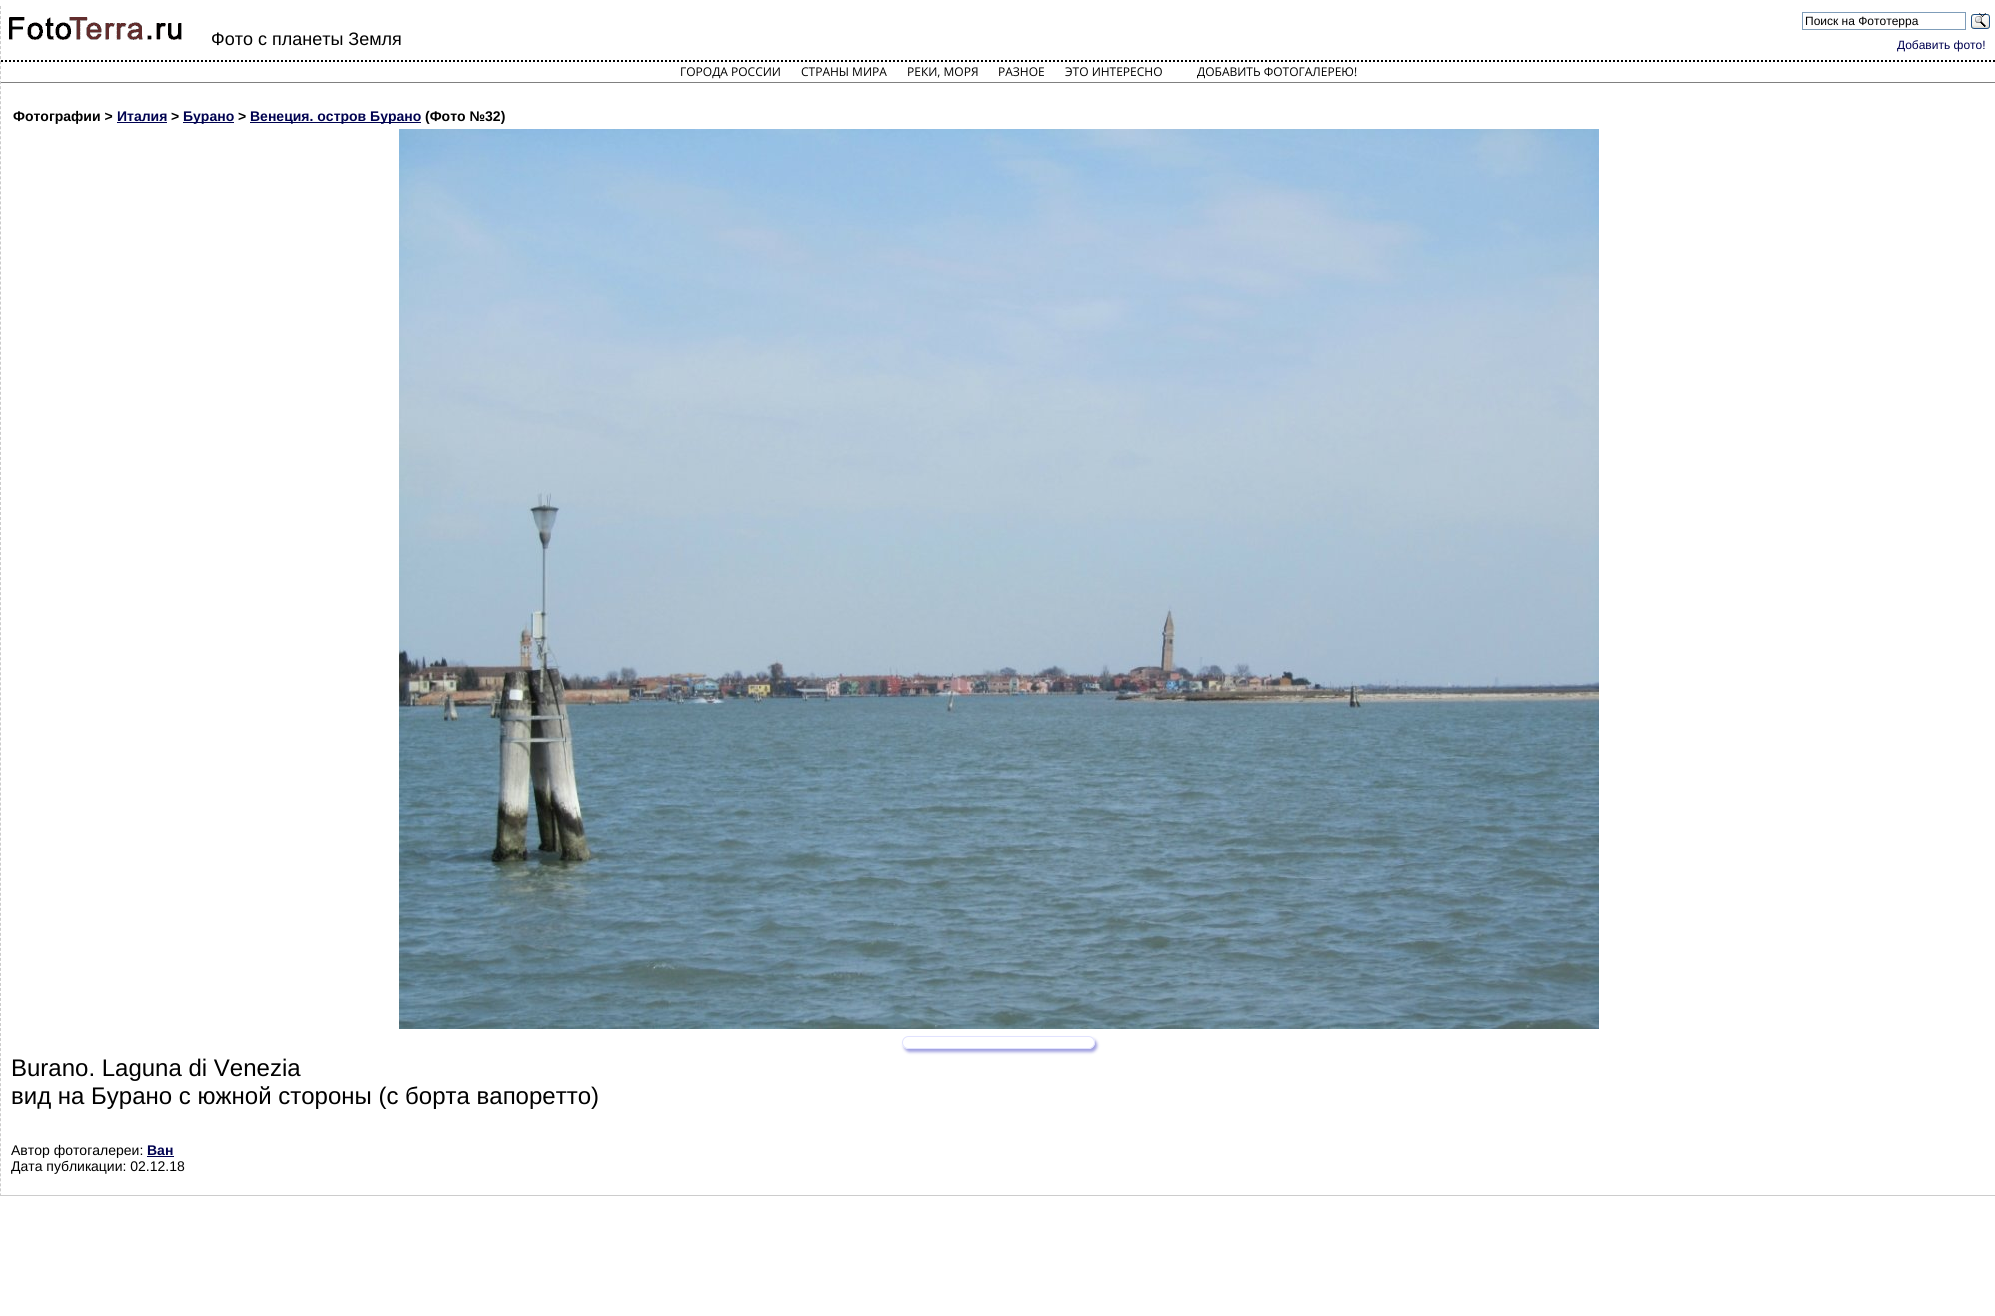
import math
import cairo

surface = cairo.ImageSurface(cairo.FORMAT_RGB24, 1995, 1316)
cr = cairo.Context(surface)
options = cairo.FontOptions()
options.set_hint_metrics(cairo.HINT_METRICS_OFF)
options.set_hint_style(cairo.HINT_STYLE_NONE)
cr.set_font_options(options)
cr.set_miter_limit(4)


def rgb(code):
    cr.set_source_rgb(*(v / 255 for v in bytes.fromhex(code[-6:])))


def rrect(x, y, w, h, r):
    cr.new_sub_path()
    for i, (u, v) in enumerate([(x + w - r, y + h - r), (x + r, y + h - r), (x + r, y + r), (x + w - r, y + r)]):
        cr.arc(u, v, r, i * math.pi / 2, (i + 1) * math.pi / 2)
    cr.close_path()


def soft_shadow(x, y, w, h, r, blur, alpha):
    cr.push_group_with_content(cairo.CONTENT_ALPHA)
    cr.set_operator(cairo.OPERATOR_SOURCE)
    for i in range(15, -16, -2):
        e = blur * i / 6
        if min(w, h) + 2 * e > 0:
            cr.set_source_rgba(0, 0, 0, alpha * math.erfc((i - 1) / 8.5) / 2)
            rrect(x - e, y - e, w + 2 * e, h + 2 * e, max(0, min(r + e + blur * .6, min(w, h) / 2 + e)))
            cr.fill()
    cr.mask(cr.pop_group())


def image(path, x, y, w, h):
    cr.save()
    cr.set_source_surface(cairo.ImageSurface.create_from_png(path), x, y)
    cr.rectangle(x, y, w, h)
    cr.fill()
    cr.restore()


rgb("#ffffff")
cr.paint()
rgb("#cccccc")
cr.rectangle(0, 1195, 1995, 1)
cr.fill()
cr.new_path()
cr.move_to(0.5, 6)
cr.line_to(0.5, 1196)
cr.set_line_width(1)
cr.set_dash([3, 2.01])
cr.stroke()
image("img/1.png", 9, 17, 173, 23)
cr.rectangle(1802.5, 12.5, 163, 17)
rgb("#7f9db9")
cr.set_dash([])
cr.stroke()
image("img/2.png", 1971, 14, 19, 15)
cr.new_path()
cr.move_to(1, 61)
cr.line_to(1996, 61)
rgb("#000000")
cr.set_line_width(2)
cr.set_dash([2, 2])
cr.stroke()
rgb("#808080")
cr.rectangle(1, 82, 1994, 1)
cr.fill()
rgb("#000000")
cr.new_path()
cr.move_to(1985.5, 13)
cr.line_to(1986, 13.5)
cr.line_to(1982.5, 17)
cr.line_to(1982, 16.5)
cr.close_path()
cr.fill()
cr.new_path()
cr.move_to(1979.5, 13)
cr.line_to(1983, 16.5)
cr.line_to(1982.5, 17)
cr.line_to(1979, 13.5)
cr.close_path()
cr.fill()
for x, y, w, h, color in [
    (117, 122, 50, 1, "#000250"),
    (183, 122, 51, 1, "#000250"),
    (250, 122, 171, 1, "#000250"),
]:
    rgb(color)
    cr.rectangle(x, y, w, h)
    cr.fill()
image("img/3.png", 399, 129, 1200, 900)
cr.save()
cr.set_fill_rule(cairo.FILL_RULE_EVEN_ODD)
cr.new_path()
cr.move_to(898, 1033)
cr.line_to(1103, 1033)
cr.line_to(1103, 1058)
cr.line_to(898, 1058)
cr.close_path()
cr.move_to(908.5, 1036)
cr.line_to(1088.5, 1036)
cr.curve_to(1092, 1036, 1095, 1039, 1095, 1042.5)
cr.curve_to(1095, 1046, 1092, 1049, 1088.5, 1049)
cr.line_to(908.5, 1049)
cr.curve_to(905, 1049, 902, 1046, 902, 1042.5)
cr.curve_to(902, 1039, 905, 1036, 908.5, 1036)
cr.close_path()
cr.clip()
rgb("#a0a0e0")
soft_shadow(904, 1039, 193, 13, 6.5, 1.5, 1)
cr.restore()
rrect(902.5, 1036.5, 192, 12, 6)
rgb("#e1e2fe")
cr.set_line_width(1)
cr.set_dash([])
cr.stroke()
rgb("#000250")
cr.rectangle(147, 1156, 27, 1)
cr.fill()
cr.select_font_face("Liberation Sans")
cr.set_font_size(18)
rgb("#000000")
cr.move_to(211, 45)
cr.show_text("Фото с планеты Земля")
cr.set_font_size(12)
cr.move_to(1805, 25)
cr.show_text("Поиск на Фототерра")
rgb("#000250")
cr.move_to(1897, 49)
cr.show_text("Добавить фото!")
cr.select_font_face("Open Sans")
rgb("#000000")
for x, y, s in [
    (680, 76, "ГОРОДА РОССИИ"),
    (801, 76, "СТРАНЫ МИРА"),
    (907, 76, "РЕКИ, МОРЯ"),
    (998, 76, "РАЗНОЕ"),
    (1065, 76, "ЭТО ИНТЕРЕСНО"),
    (1197, 76, "ДОБАВИТЬ ФОТОГАЛЕРЕЮ!"),
]:
    cr.move_to(x, y)
    cr.show_text(s)
cr.select_font_face("Liberation Sans", cairo.FONT_SLANT_NORMAL, cairo.FONT_WEIGHT_BOLD)
cr.set_font_size(14)
cr.move_to(13, 121)
cr.show_text("Фотографии >")
rgb("#000250")
cr.move_to(117, 121)
cr.show_text("Италия")
rgb("#000000")
cr.move_to(171, 121)
cr.show_text(">")
rgb("#000250")
cr.move_to(183, 121)
cr.show_text("Бурано")
rgb("#000000")
cr.move_to(238, 121)
cr.show_text(">")
rgb("#000250")
cr.move_to(250, 121)
cr.show_text("Венеция. остров Бурано")
rgb("#000000")
cr.move_to(425, 121)
cr.show_text("(Фото №32)")
cr.select_font_face("Liberation Sans")
cr.set_font_size(24)
cr.move_to(11, 1076)
cr.show_text("Burano. Laguna di Venezia")
cr.move_to(11, 1104)
cr.show_text("вид на Бурано с южной стороны (с борта вапоретто)")
cr.set_font_size(14)
cr.move_to(11, 1155)
cr.show_text("Автор фотогалереи:")
cr.select_font_face("Liberation Sans", cairo.FONT_SLANT_NORMAL, cairo.FONT_WEIGHT_BOLD)
rgb("#000250")
cr.move_to(147, 1155)
cr.show_text("Ван")
cr.select_font_face("Liberation Sans")
rgb("#000000")
cr.move_to(11, 1171)
cr.show_text("Дата публикации: 02.12.18")
surface.write_to_png("page.png")
